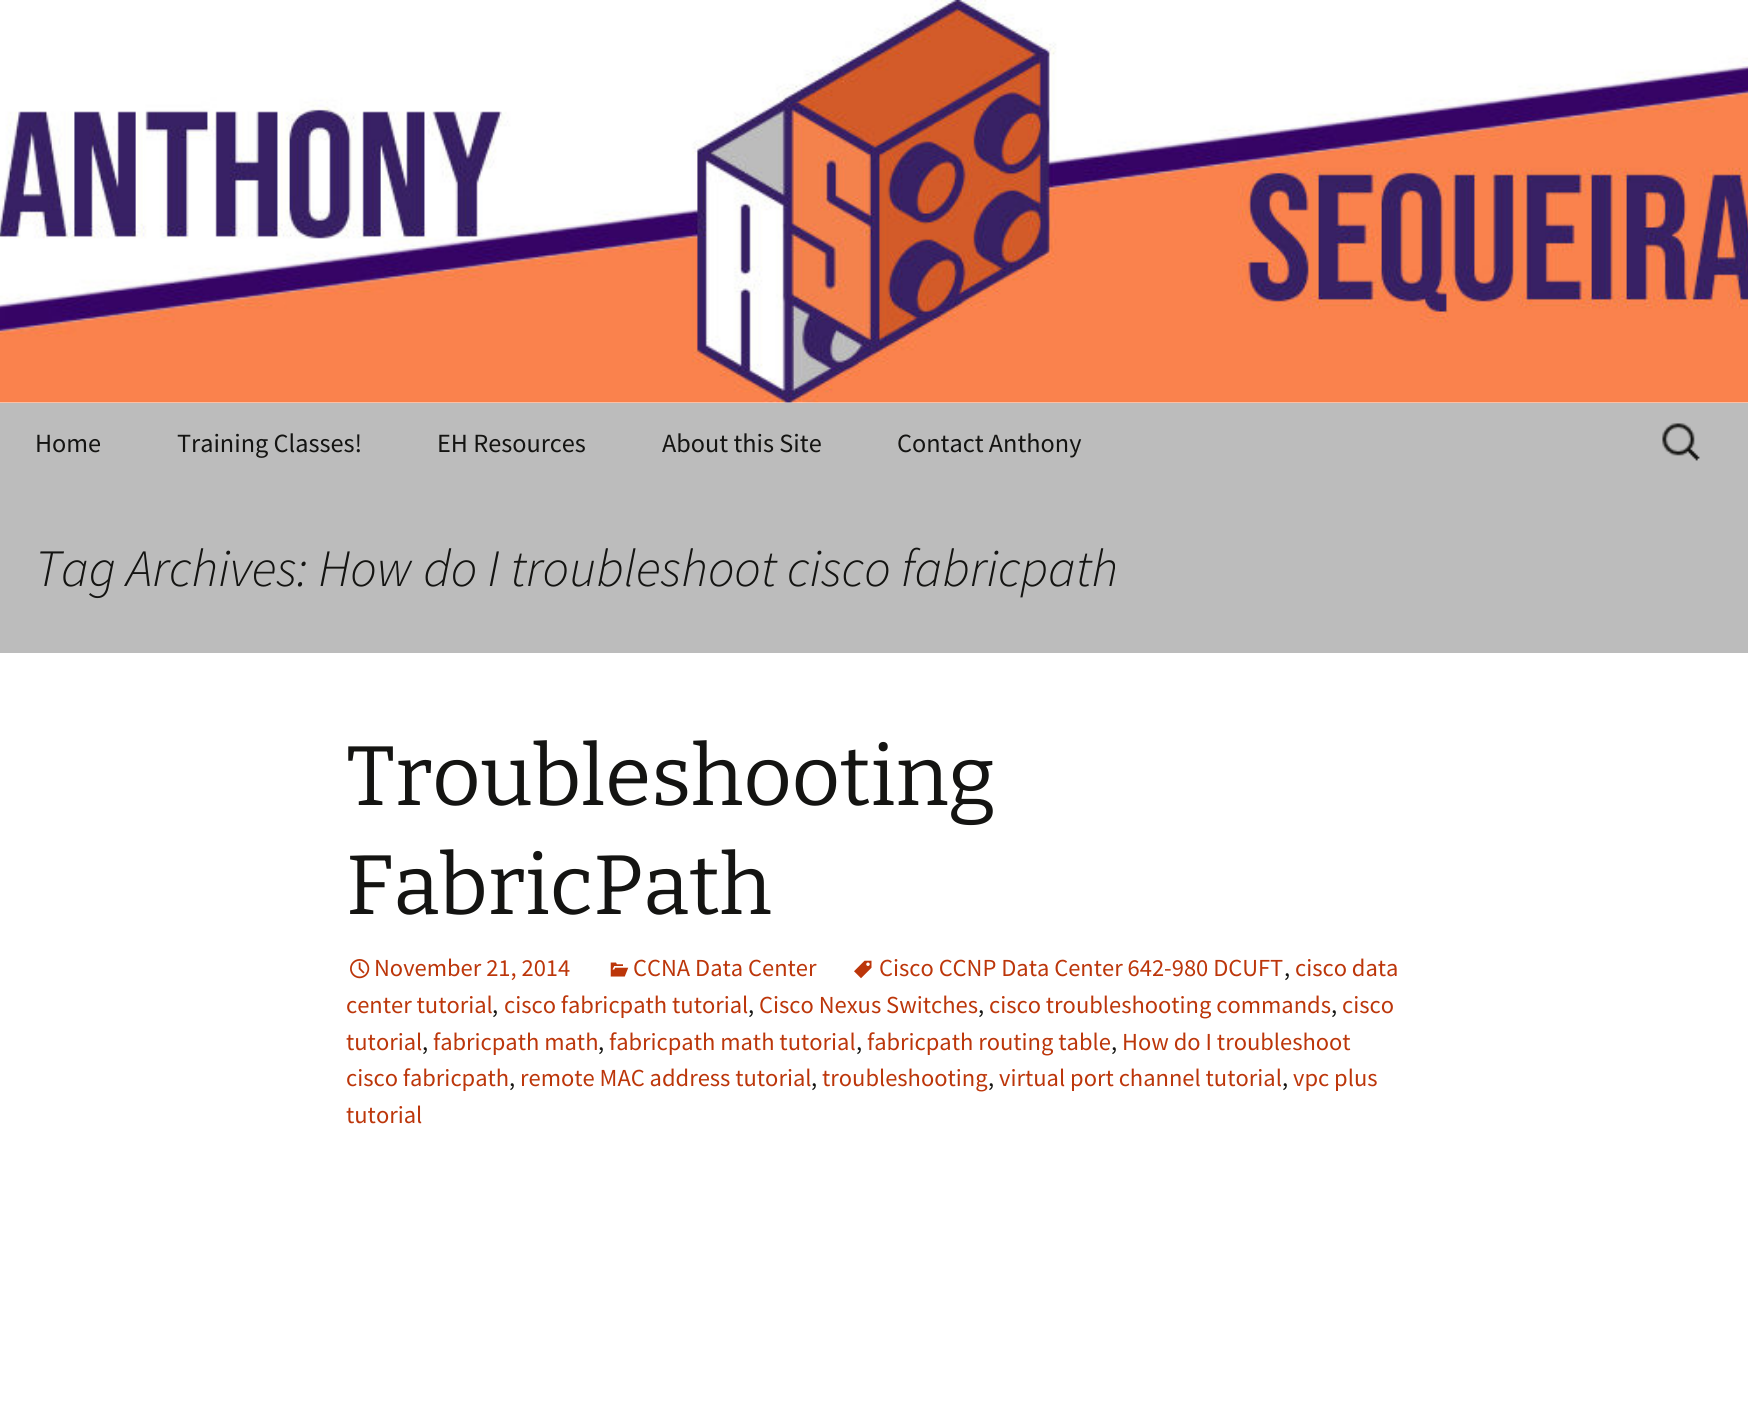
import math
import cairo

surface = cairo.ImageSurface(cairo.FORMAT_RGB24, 1748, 1426)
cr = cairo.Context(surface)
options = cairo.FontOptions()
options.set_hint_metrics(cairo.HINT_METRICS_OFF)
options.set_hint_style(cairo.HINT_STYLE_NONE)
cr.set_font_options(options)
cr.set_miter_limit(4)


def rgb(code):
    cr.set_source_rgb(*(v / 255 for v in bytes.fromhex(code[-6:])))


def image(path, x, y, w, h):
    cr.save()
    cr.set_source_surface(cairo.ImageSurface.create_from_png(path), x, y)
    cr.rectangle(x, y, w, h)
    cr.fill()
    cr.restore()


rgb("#ffffff")
cr.paint()
image("img/1.png", 0, 0, 1748, 403)
rgb("#bcbcbc")
cr.rectangle(0, 403, 1748, 250)
cr.fill()
image("img/2.png", 1662, 423, 38, 38)
image("img/3.png", 854, 960, 18, 19)
image("img/4.png", 350, 959, 20, 20)
image("img/5.png", 610, 962, 19, 15)
cr.select_font_face("Source Sans Pro")
cr.set_font_size(26.25)
rgb("#141412")
for x, y, s in [
    (35, 452, "Home"),
    (177, 452, "Training Classes!"),
    (437, 452, "EH Resources"),
    (662, 452, "About this Site"),
    (897, 452, "Contact Anthony"),
]:
    cr.move_to(x, y)
    cr.show_text(s)
cr.select_font_face("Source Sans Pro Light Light", cairo.FONT_SLANT_ITALIC)
cr.set_font_size(52.5)
cr.move_to(35, 586)
cr.show_text("Tag Archives: How do I troubleshoot cisco fabricpath")
cr.select_font_face("Bitter Thin")
cr.set_font_size(84)
cr.move_to(346, 805)
cr.show_text("Troubleshooting")
cr.move_to(346, 914)
cr.show_text("FabricPath")
cr.select_font_face("Source Sans Pro")
cr.set_font_size(24.5)
rgb("#bc360a")
cr.move_to(879, 976)
cr.show_text("Cisco CCNP Data Center 642-980 DCUFT")
rgb("#141412")
cr.move_to(1284, 976)
cr.show_text(",")
rgb("#bc360a")
cr.move_to(1295, 976)
cr.show_text("cisco data")
cr.move_to(346, 1013)
cr.show_text("center tutorial")
rgb("#141412")
cr.move_to(492, 1013)
cr.show_text(",")
rgb("#bc360a")
cr.move_to(504, 1013)
cr.show_text("cisco fabricpath tutorial")
rgb("#141412")
cr.move_to(748, 1013)
cr.show_text(",")
rgb("#bc360a")
cr.move_to(759, 1013)
cr.show_text("Cisco Nexus Switches")
rgb("#141412")
cr.move_to(978, 1013)
cr.show_text(",")
rgb("#bc360a")
cr.move_to(989, 1013)
cr.show_text("cisco troubleshooting commands")
rgb("#141412")
cr.move_to(1331, 1013)
cr.show_text(",")
rgb("#bc360a")
cr.move_to(1342, 1013)
cr.show_text("cisco")
cr.move_to(346, 1050)
cr.show_text("tutorial")
rgb("#141412")
cr.move_to(422, 1050)
cr.show_text(",")
rgb("#bc360a")
cr.move_to(433, 1050)
cr.show_text("fabricpath math")
rgb("#141412")
cr.move_to(598, 1050)
cr.show_text(",")
rgb("#bc360a")
cr.move_to(609, 1050)
cr.show_text("fabricpath math tutorial")
rgb("#141412")
cr.move_to(856, 1050)
cr.show_text(",")
rgb("#bc360a")
cr.move_to(867, 1050)
cr.show_text("fabricpath routing table")
rgb("#141412")
cr.move_to(1111, 1050)
cr.show_text(",")
rgb("#bc360a")
cr.move_to(1122, 1050)
cr.show_text("How do I troubleshoot")
cr.move_to(346, 1086)
cr.show_text("cisco fabricpath")
rgb("#141412")
cr.move_to(509, 1086)
cr.show_text(",")
rgb("#bc360a")
cr.move_to(520, 1086)
cr.show_text("remote MAC address tutorial")
rgb("#141412")
cr.move_to(811, 1086)
cr.show_text(",")
rgb("#bc360a")
cr.move_to(822, 1086)
cr.show_text("troubleshooting")
rgb("#141412")
cr.move_to(988, 1086)
cr.show_text(",")
rgb("#bc360a")
cr.move_to(999, 1086)
cr.show_text("virtual port channel tutorial")
rgb("#141412")
cr.move_to(1282, 1086)
cr.show_text(",")
rgb("#bc360a")
for x, y, s in [
    (1293, 1086, "vpc plus"),
    (346, 1123, "tutorial"),
    (374, 976, "November 21, 2014"),
    (633, 976, "CCNA Data Center"),
]:
    cr.move_to(x, y)
    cr.show_text(s)
surface.write_to_png("page.png")
